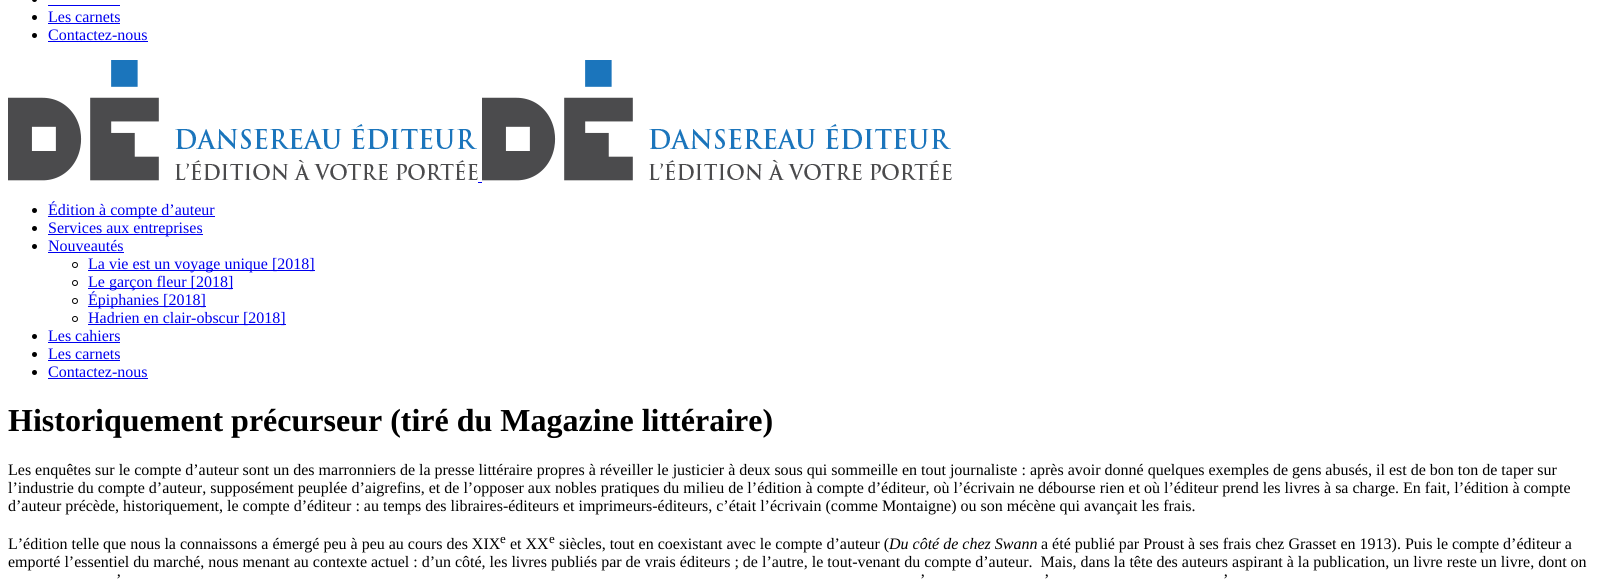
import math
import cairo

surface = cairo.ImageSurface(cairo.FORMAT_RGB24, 1618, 582)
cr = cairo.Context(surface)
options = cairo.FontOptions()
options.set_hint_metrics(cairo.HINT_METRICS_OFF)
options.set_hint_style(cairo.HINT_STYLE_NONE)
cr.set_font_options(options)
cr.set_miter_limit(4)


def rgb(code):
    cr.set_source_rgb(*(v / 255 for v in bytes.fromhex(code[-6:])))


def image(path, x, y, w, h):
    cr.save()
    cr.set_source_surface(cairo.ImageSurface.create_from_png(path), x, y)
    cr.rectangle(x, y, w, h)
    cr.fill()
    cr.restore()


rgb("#ffffff")
cr.paint()
rgb("#000000")
cr.arc(34.5, -0.5, 2.5, 0, 2 * math.pi)
cr.fill()
rgb("#0000ee")
cr.rectangle(48, 5, 72, 1)
cr.fill()
rgb("#000000")
cr.arc(34.5, 17.5, 2.5, 0, 2 * math.pi)
cr.fill()
rgb("#0000ee")
cr.rectangle(48, 23, 72, 1)
cr.fill()
rgb("#000000")
cr.arc(34.5, 35.5, 2.5, 0, 2 * math.pi)
cr.fill()
rgb("#0000ee")
cr.rectangle(48, 41, 100, 1)
cr.fill()
image("img/1.png", 8, 60, 470, 121)
image("img/1.png", 482, 60, 470, 121)
cr.rectangle(478, 182, 4, 1)
cr.fill()
rgb("#000000")
cr.arc(34.5, 210.5, 2.5, 0, 2 * math.pi)
cr.fill()
rgb("#0000ee")
cr.rectangle(48, 216, 167, 1)
cr.fill()
rgb("#000000")
cr.arc(34.5, 228.5, 2.5, 0, 2 * math.pi)
cr.fill()
rgb("#0000ee")
cr.rectangle(48, 234, 155, 1)
cr.fill()
rgb("#000000")
cr.arc(34.5, 246.5, 2.5, 0, 2 * math.pi)
cr.fill()
rgb("#0000ee")
cr.rectangle(48, 252, 76, 1)
cr.fill()
cr.arc(75, 265, 2.5, 0, 2 * math.pi)
rgb("#000000")
cr.set_line_width(1)
cr.stroke()
rgb("#0000ee")
cr.rectangle(88, 270, 227, 1)
cr.fill()
cr.arc(75, 283, 2.5, 0, 2 * math.pi)
rgb("#000000")
cr.stroke()
rgb("#0000ee")
cr.rectangle(88, 288, 145, 1)
cr.fill()
cr.arc(75, 301, 2.5, 0, 2 * math.pi)
rgb("#000000")
cr.stroke()
rgb("#0000ee")
cr.rectangle(88, 306, 118, 1)
cr.fill()
cr.arc(75, 319, 2.5, 0, 2 * math.pi)
rgb("#000000")
cr.stroke()
rgb("#0000ee")
cr.rectangle(88, 324, 198, 1)
cr.fill()
rgb("#000000")
cr.arc(34.5, 336.5, 2.5, 0, 2 * math.pi)
cr.fill()
rgb("#0000ee")
cr.rectangle(48, 342, 72, 1)
cr.fill()
rgb("#000000")
cr.arc(34.5, 354.5, 2.5, 0, 2 * math.pi)
cr.fill()
rgb("#0000ee")
cr.rectangle(48, 360, 72, 1)
cr.fill()
rgb("#000000")
cr.arc(34.5, 372.5, 2.5, 0, 2 * math.pi)
cr.fill()
rgb("#0000ee")
cr.rectangle(48, 378, 100, 1)
cr.fill()
cr.select_font_face("Liberation Serif")
cr.set_font_size(16)
for x, y, s in [
    (48, 22, "Les carnets"),
    (48, 40, "Contactez-nous"),
    (48, 215, "Édition à compte d’auteur"),
    (48, 233, "Services aux entreprises"),
    (48, 251, "Nouveautés"),
    (88, 269, "La vie est un voyage unique [2018]"),
    (88, 287, "Le garçon fleur [2018]"),
    (88, 305, "Épiphanies [2018]"),
    (88, 323, "Hadrien en clair-obscur [2018]"),
    (48, 341, "Les cahiers"),
    (48, 359, "Les carnets"),
    (48, 377, "Contactez-nous"),
]:
    cr.move_to(x, y)
    cr.show_text(s)
cr.select_font_face("Liberation Serif", cairo.FONT_SLANT_NORMAL, cairo.FONT_WEIGHT_BOLD)
cr.set_font_size(32)
rgb("#000000")
cr.move_to(8, 431)
cr.show_text("Historiquement précurseur (tiré du Magazine littéraire)")
cr.select_font_face("Liberation Serif")
cr.set_font_size(16)
for x, y, s in [
    (8, 475, "Les enquêtes sur le compte d’auteur sont un des marronniers de la presse littéraire propres à réveiller le justicier à deux sous qui sommeille en tout journaliste : après avoir donné quelques exemples de gens abusés, il est de bon ton de taper sur"),
    (8, 493, "l’industrie du compte d’auteur, supposément peuplée d’aigrefins, et de l’opposer aux nobles pratiques du milieu de l’édition à compte d’éditeur, où l’écrivain ne débourse rien et où l’éditeur prend les livres à sa charge. En fait, l’édition à compte"),
    (8, 511, "d’auteur précède, historiquement, le compte d’éditeur : au temps des libraires-éditeurs et imprimeurs-éditeurs, c’était l’écrivain (comme Montaigne) ou son mécène qui avançait les frais."),
    (8, 549, "L’édition telle que nous la connaissons a émergé peu à peu au cours des XIX"),
]:
    cr.move_to(x, y)
    cr.show_text(s)
cr.set_font_size(13)
cr.move_to(500, 543)
cr.show_text("e")
cr.set_font_size(16)
cr.move_to(510, 549)
cr.show_text("et XX")
cr.set_font_size(13)
cr.move_to(549, 543)
cr.show_text("e")
cr.set_font_size(16)
cr.move_to(559, 549)
cr.show_text("siècles, tout en coexistant avec le compte d’auteur (")
cr.select_font_face("Liberation Serif", cairo.FONT_SLANT_ITALIC)
cr.move_to(889, 549)
cr.show_text("Du côté de chez Swann")
cr.select_font_face("Liberation Serif")
for x, y, s in [
    (1041, 549, "a été publié par Proust à ses frais chez Grasset en 1913). Puis le compte d’éditeur a"),
    (8, 567, "emporté l’essentiel du marché, nous menant au contexte actuel : d’un côté, les livres publiés par de vrais éditeurs ; de l’autre, le tout-venant du compte d’auteur.  Mais, dans la tête des auteurs aspirant à la publication, un livre reste un livre, dont on"),
    (116, 585, "’"),
    (920, 585, "’"),
    (1044, 585, "’"),
    (1223, 585, "’"),
]:
    cr.move_to(x, y)
    cr.show_text(s)
surface.write_to_png("page.png")
